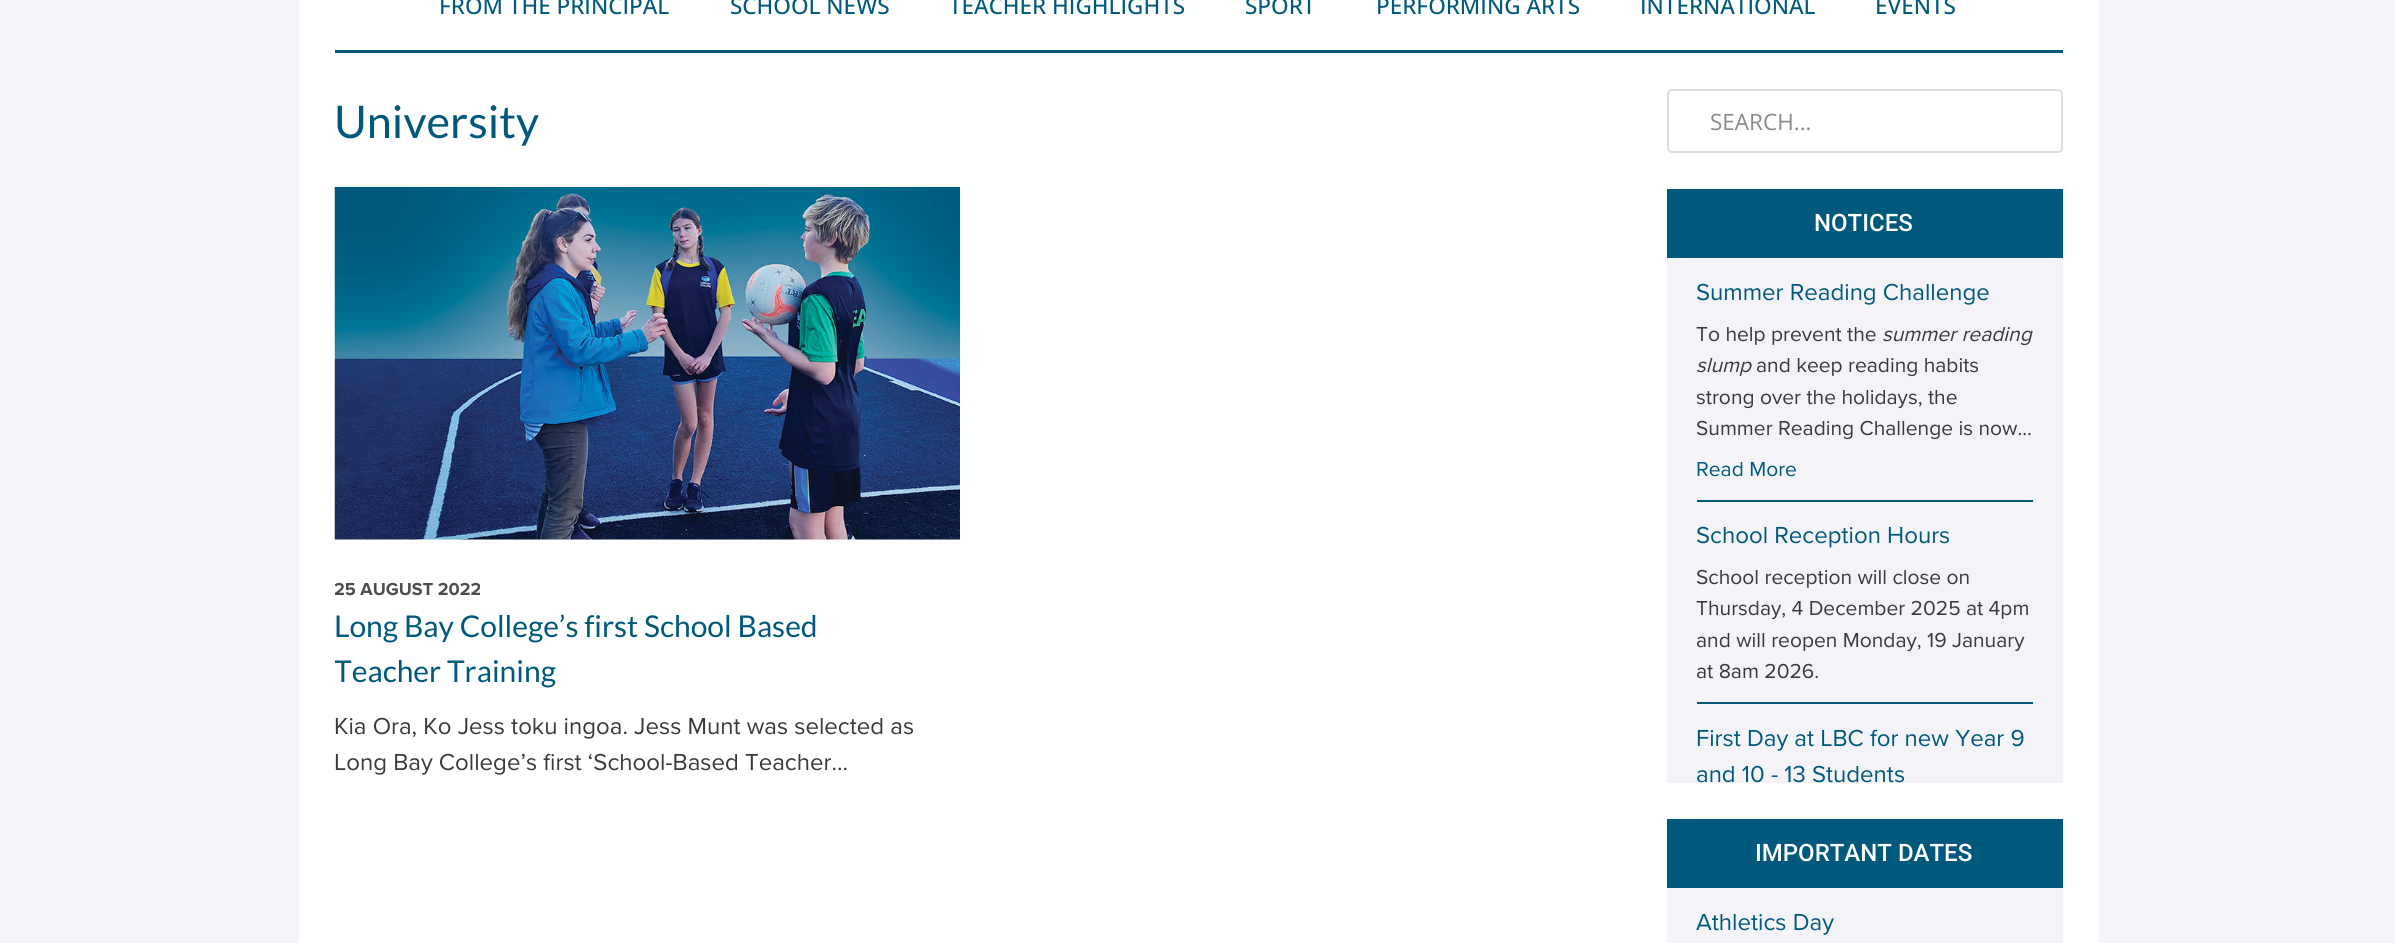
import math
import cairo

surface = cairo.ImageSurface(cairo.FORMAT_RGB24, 2395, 943)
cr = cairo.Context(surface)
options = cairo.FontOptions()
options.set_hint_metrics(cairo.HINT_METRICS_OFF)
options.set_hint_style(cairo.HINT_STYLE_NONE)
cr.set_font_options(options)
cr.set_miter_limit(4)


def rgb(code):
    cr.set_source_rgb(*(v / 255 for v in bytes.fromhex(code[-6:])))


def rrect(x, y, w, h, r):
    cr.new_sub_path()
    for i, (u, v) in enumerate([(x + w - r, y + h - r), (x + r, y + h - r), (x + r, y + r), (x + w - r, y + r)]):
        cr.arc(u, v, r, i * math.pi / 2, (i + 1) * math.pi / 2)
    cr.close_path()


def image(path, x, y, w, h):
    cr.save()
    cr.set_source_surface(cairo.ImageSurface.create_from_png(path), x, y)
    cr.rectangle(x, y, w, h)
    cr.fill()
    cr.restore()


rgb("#f3f3f8")
cr.paint()
rgb("#ffffff")
cr.rectangle(299, 0, 1800, 943)
cr.fill()
rgb("#00597c")
cr.rectangle(335, 50, 1728, 3)
cr.fill()
image("img/1.png", 334, 187, 626, 353)
rrect(1668, 90, 394, 62, 4)
rgb("#dcddde")
cr.stroke()
for x, y, w, h, color in [
    (1667, 189, 396, 69, "#00597c"),
    (1667, 258, 396, 525, "#f3f3f8"),
    (1697, 500, 336, 2, "#00597c"),
    (1697, 702, 336, 2, "#00597c"),
    (1667, 819, 396, 69, "#00597c"),
    (1667, 888, 396, 55, "#f3f3f8"),
]:
    rgb(color)
    cr.rectangle(x, y, w, h)
    cr.fill()
cr.select_font_face("Open Sans Medium")
cr.set_font_size(22.5)
rgb("#00597c")
for x, y, s in [
    (439, 14, "FROM THE PRINCIPAL"),
    (730, 14, "SCHOOL NEWS"),
    (949, 14, "TEACHER HIGHLIGHTS"),
    (1245, 14, "SPORT"),
    (1376, 14, "PERFORMING ARTS"),
    (1640, 14, "INTERNATIONAL"),
    (1875, 14, "EVENTS"),
]:
    cr.move_to(x, y)
    cr.show_text(s)
cr.select_font_face("Lato")
cr.set_font_size(45)
cr.move_to(334, 138)
cr.show_text("University")
cr.save()
cr.rectangle(335, 188, 625, 592)
cr.clip()
cr.select_font_face("Proxima Nova", cairo.FONT_SLANT_NORMAL, cairo.FONT_WEIGHT_BOLD)
cr.set_font_size(18)
rgb("#4d4d4f")
cr.move_to(334, 595)
cr.show_text("25 AUGUST 2022")
cr.restore()
cr.set_font_size(30)
cr.move_to(334, 637)
cr.show_text("Long Bay College’s first School Based")
cr.save()
cr.rectangle(335, 188, 625, 592)
cr.clip()
cr.move_to(334, 682)
cr.show_text("Teacher Training")
cr.restore()
cr.select_font_face("Proxima Nova")
cr.set_font_size(24)
rgb("#3a3a3a")
cr.move_to(334, 734)
cr.show_text("Kia Ora, Ko Jess toku ingoa. Jess Munt was selected as")
cr.move_to(334, 770)
cr.show_text("Long Bay College’s first ‘School-Based Teacher...")
cr.select_font_face("Open Sans")
cr.set_font_size(22.5)
rgb("#898989")
cr.move_to(1710, 130)
cr.show_text("SEARCH...")
cr.select_font_face("Roboto Medium")
cr.set_font_size(24)
rgb("#ffffff")
cr.move_to(1814, 231)
cr.show_text("NOTICES")
cr.select_font_face("Proxima Nova")
rgb("#00597c")
cr.move_to(1696, 300)
cr.show_text("Summer Reading Challenge")
cr.set_font_size(21)
rgb("#3a3a3a")
cr.move_to(1696, 341)
cr.show_text("To help prevent the")
cr.select_font_face("Proxima Nova", cairo.FONT_SLANT_ITALIC)
cr.move_to(1882, 341)
cr.show_text("summer reading")
cr.move_to(1696, 372)
cr.show_text("slump")
cr.select_font_face("Proxima Nova")
for x, y, s in [
    (1756, 372, "and keep reading habits"),
    (1696, 404, "strong over the holidays, the"),
    (1696, 435, "Summer Reading Challenge is now..."),
]:
    cr.move_to(x, y)
    cr.show_text(s)
rgb("#00597c")
cr.move_to(1696, 476)
cr.show_text("Read More")
cr.set_font_size(24)
cr.move_to(1696, 543)
cr.show_text("School Reception Hours")
cr.set_font_size(21)
rgb("#3a3a3a")
for x, y, s in [
    (1696, 584, "School reception will close on"),
    (1696, 615, "Thursday, 4 December 2025 at 4pm"),
    (1696, 647, "and will reopen Monday, 19 January"),
    (1696, 678, "at 8am 2026."),
]:
    cr.move_to(x, y)
    cr.show_text(s)
cr.set_font_size(24)
rgb("#00597c")
cr.move_to(1696, 746)
cr.show_text("First Day at LBC for new Year 9")
cr.move_to(1696, 782)
cr.show_text("and 10 - 13 Students")
cr.select_font_face("Roboto Medium")
rgb("#ffffff")
cr.move_to(1755, 861)
cr.show_text("IMPORTANT DATES")
cr.select_font_face("Proxima Nova")
rgb("#00597c")
cr.move_to(1696, 930)
cr.show_text("Athletics Day")
surface.write_to_png("page.png")
